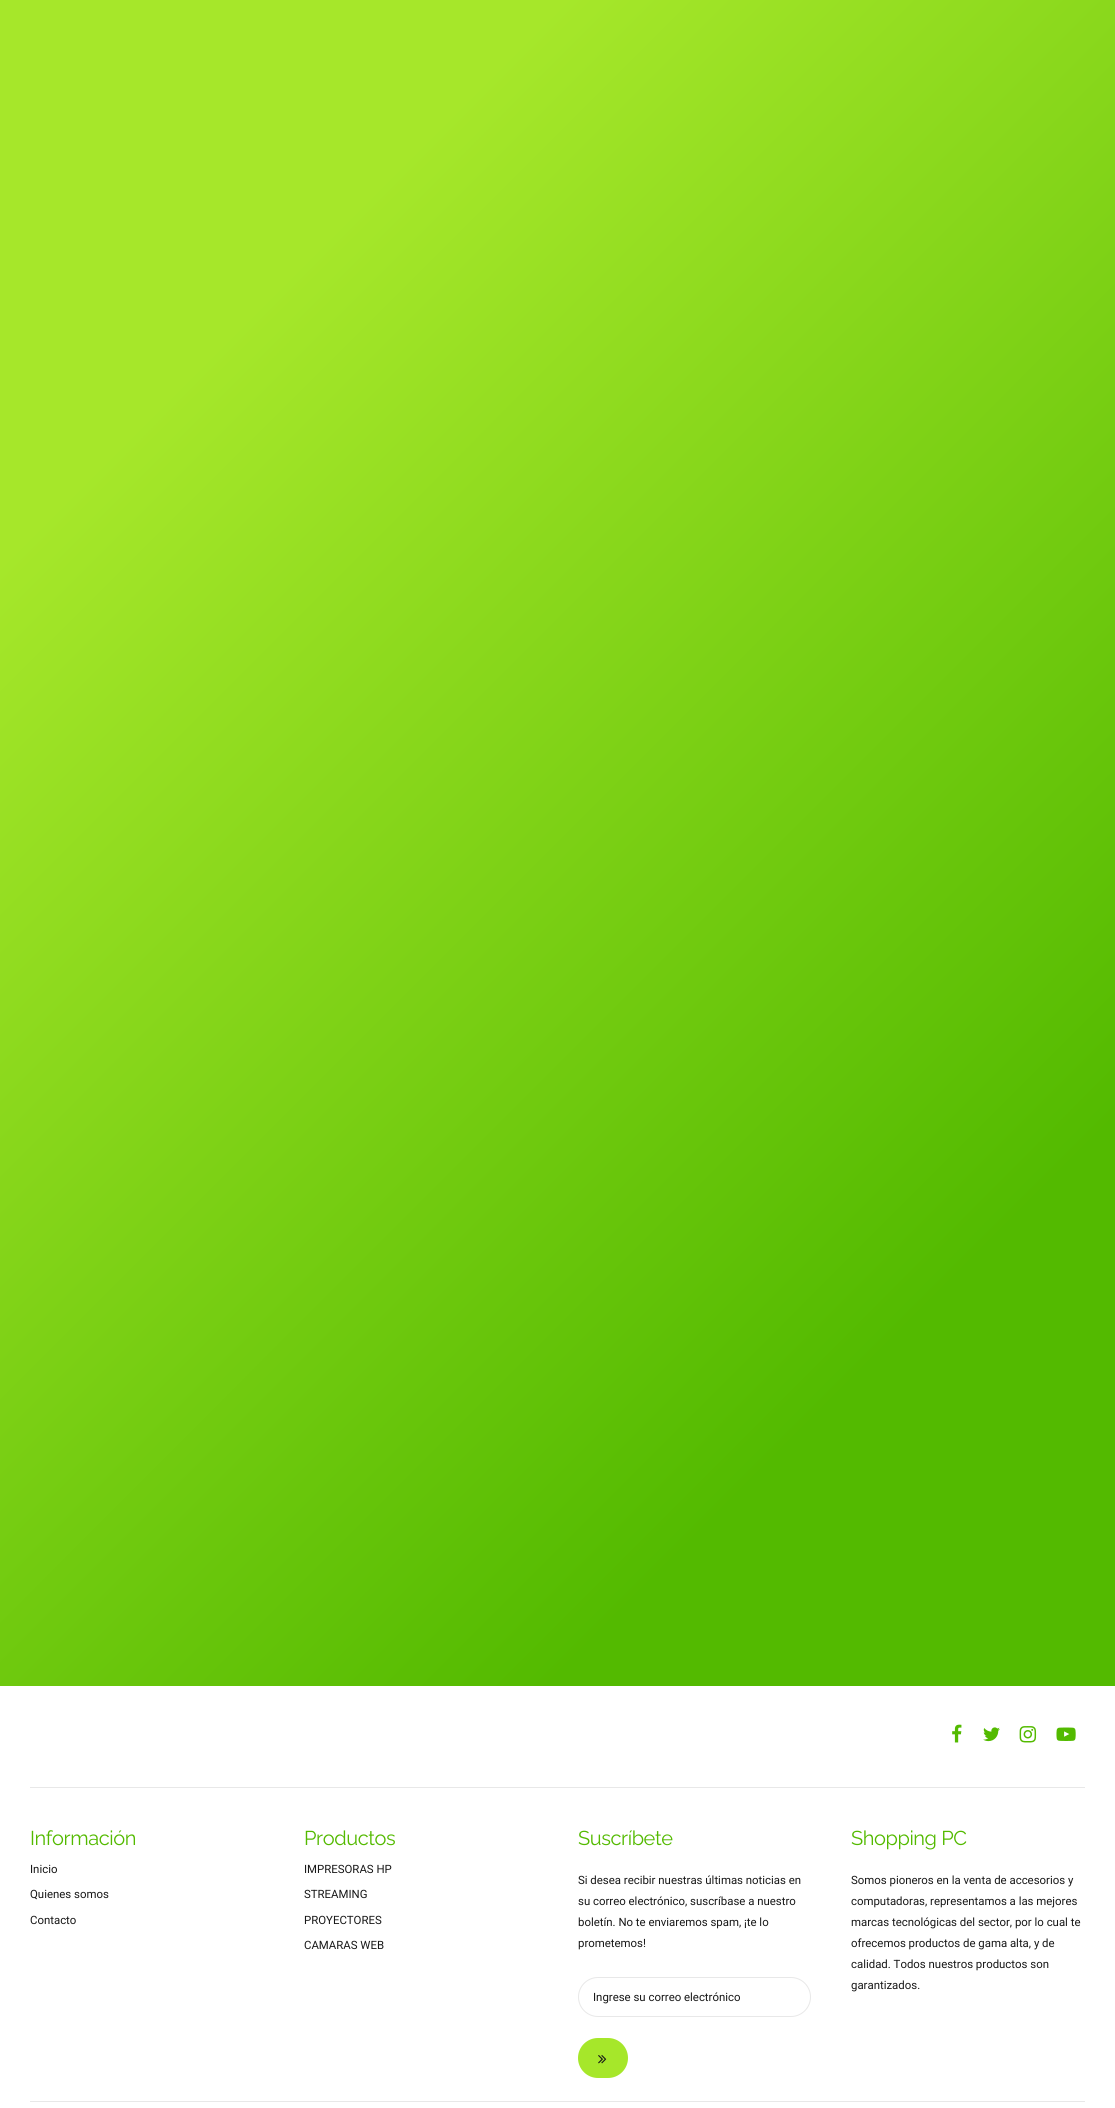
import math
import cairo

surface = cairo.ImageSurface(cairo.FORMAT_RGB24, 1115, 2108)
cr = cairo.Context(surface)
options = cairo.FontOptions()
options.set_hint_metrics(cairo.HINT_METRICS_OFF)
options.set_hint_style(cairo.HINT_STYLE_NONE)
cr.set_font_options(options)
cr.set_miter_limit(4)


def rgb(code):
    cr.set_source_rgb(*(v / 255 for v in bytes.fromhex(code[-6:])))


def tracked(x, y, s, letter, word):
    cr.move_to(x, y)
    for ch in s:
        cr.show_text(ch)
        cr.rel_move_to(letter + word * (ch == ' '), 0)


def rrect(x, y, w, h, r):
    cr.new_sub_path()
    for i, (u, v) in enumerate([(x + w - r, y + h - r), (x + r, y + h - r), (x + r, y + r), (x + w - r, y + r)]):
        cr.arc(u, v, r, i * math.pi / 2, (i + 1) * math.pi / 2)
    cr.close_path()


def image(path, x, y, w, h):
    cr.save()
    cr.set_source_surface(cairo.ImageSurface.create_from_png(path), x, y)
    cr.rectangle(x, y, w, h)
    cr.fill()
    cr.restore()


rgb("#ffffff")
cr.paint()
gradient = cairo.LinearGradient(-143, 143, 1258, 1543)
gradient.add_color_stop_rgba(0.2, 0.651, 0.906, 0.165, 1)
gradient.add_color_stop_rgba(0.8, 0.325, 0.729, 0, 1)
cr.set_source(gradient)
cr.rectangle(0, 0, 1115, 1686)
cr.fill()
image("img/1.png", 952, 1724, 10, 19)
image("img/2.png", 983, 1727, 17, 15)
image("img/3.png", 1019, 1726, 18, 17)
image("img/4.png", 1056, 1727, 20, 14)
rgb("#e8e8e8")
cr.rectangle(30, 1787, 1055, 1)
cr.fill()
rrect(578.5, 1977.5, 232, 39, 19.5)
cr.set_line_width(1)
cr.stroke()
rgb("#a6e72a")
rrect(578, 2038, 50, 40, 20)
cr.fill()
image("img/5.png", 598, 2055, 9, 9)
rgb("#e8e8e8")
cr.rectangle(30, 2101, 1055, 1)
cr.fill()
cr.select_font_face("Raleway")
cr.set_font_size(20)
rgb("#53ba00")
tracked(30, 1845, "Información", -0.4, 0)
cr.select_font_face("Roboto")
cr.set_font_size(11.4)
rgb("#181818")
for x, y, s in [
    (30, 1873, "Inicio"),
    (30, 1898, "Quienes somos"),
    (30, 1924, "Contacto"),
]:
    cr.move_to(x, y)
    cr.show_text(s)
cr.select_font_face("Raleway")
cr.set_font_size(20)
rgb("#53ba00")
tracked(304, 1845, "Productos", -0.4, 0)
cr.select_font_face("Roboto")
cr.set_font_size(11.4)
rgb("#181818")
for x, y, s in [
    (304, 1873, "IMPRESORAS HP"),
    (304, 1898, "STREAMING"),
    (304, 1924, "PROYECTORES"),
    (304, 1949, "CAMARAS WEB"),
]:
    cr.move_to(x, y)
    cr.show_text(s)
cr.select_font_face("Raleway")
cr.set_font_size(20)
rgb("#53ba00")
tracked(578, 1845, "Suscríbete", -0.4, 0)
cr.select_font_face("Roboto")
cr.set_font_size(11.4)
rgb("#181818")
for x, y, s in [
    (578, 1884, "Si desea recibir nuestras últimas noticias en"),
    (578, 1905, "su correo electrónico, suscríbase a nuestro"),
    (578, 1926, "boletín. No te enviaremos spam, ¡te lo"),
    (578, 1947, "prometemos!"),
    (593, 2001, "Ingrese su correo electrónico"),
]:
    cr.move_to(x, y)
    cr.show_text(s)
cr.select_font_face("Raleway")
cr.set_font_size(20)
rgb("#53ba00")
tracked(851, 1845, "Shopping PC", -0.4, 0)
cr.select_font_face("Roboto")
cr.set_font_size(11.4)
rgb("#181818")
for x, y, s in [
    (851, 1884, "Somos pioneros en la venta de accesorios y"),
    (851, 1905, "computadoras, representamos a las mejores"),
    (851, 1926, "marcas tecnológicas del sector, por lo cual te"),
    (851, 1947, "ofrecemos productos de gama alta, y de"),
    (851, 1968, "calidad. Todos nuestros productos son"),
    (851, 1989, "garantizados."),
]:
    cr.move_to(x, y)
    cr.show_text(s)
surface.write_to_png("page.png")
